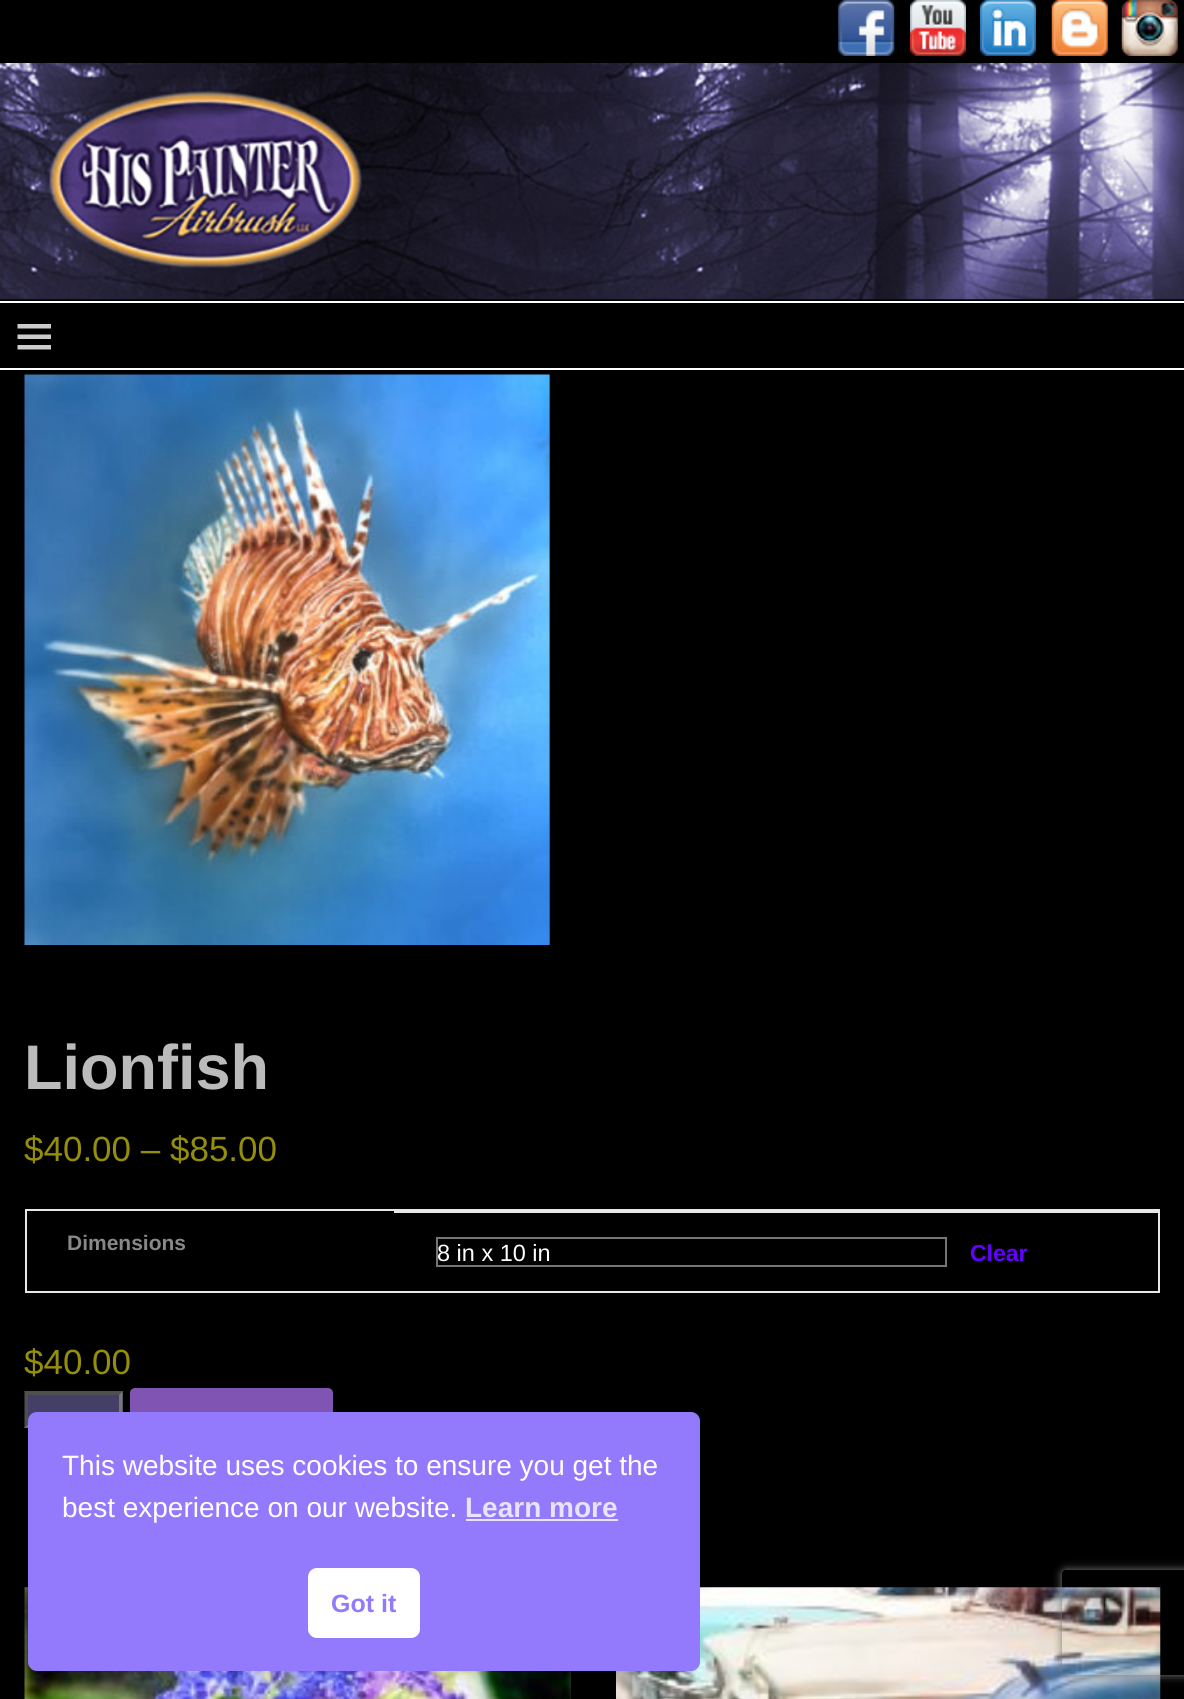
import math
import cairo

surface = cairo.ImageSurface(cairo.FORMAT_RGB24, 1184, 1699)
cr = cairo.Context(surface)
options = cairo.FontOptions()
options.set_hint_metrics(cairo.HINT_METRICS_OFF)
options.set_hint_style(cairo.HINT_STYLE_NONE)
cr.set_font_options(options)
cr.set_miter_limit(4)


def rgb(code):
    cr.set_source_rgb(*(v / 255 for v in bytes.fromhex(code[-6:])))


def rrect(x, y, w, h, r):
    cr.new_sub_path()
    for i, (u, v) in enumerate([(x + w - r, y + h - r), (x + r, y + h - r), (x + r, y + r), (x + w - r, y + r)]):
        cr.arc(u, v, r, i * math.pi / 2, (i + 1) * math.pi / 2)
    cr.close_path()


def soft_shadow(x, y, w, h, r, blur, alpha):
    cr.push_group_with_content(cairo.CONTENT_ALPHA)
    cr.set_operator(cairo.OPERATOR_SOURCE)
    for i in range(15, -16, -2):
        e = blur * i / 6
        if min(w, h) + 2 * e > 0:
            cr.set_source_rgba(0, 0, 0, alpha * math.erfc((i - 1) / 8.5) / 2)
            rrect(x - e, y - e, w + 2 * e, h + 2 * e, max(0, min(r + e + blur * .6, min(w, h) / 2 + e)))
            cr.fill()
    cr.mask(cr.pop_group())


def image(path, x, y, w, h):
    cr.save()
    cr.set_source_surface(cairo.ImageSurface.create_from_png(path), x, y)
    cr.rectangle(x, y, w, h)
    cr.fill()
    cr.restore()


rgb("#000000")
cr.paint()
image("img/1.png", 838, 0, 57, 56)
image("img/2.png", 910, 0, 56, 56)
image("img/3.png", 980, 0, 56, 56)
image("img/4.png", 1051, 0, 57, 56)
image("img/5.png", 1121, 0, 57, 56)
image("img/6.png", 0, 63, 1184, 237)
rgb("#ffffff")
cr.rectangle(0, 301, 1184, 2)
cr.fill()
cr.rectangle(0, 368, 1184, 2)
cr.fill()
rgb("#cccccc")
cr.new_path()
cr.move_to(17.5, 349.5)
cr.line_to(17.5, 345)
cr.line_to(51, 345)
cr.line_to(51, 349.5)
cr.close_path()
cr.move_to(17.5, 324)
cr.line_to(51, 324)
cr.line_to(51, 328.5)
cr.line_to(17.5, 328.5)
cr.close_path()
cr.move_to(17.5, 339)
cr.line_to(17.5, 334.5)
cr.line_to(51, 334.5)
cr.line_to(51, 339)
cr.close_path()
cr.fill()
rgb("#2b2b2b")
cr.rectangle(549, 375, 1, 570)
cr.fill()
image("img/7.png", 24, 374, 526, 571)
cr.rectangle(26, 1210, 1133, 82)
rgb("#e7e7e7")
cr.stroke()
cr.rectangle(394, 1211, 765, 2)
cr.fill()
cr.rectangle(437, 1238, 509, 28)
rgb("#767676")
cr.stroke()
rgb("#443f67")
cr.rectangle(25, 1391, 98, 36)
cr.fill()
rgb("#4f4f4f")
cr.new_path()
cr.move_to(24, 1391)
cr.line_to(122, 1391)
cr.line_to(119, 1395)
cr.line_to(28, 1395)
cr.close_path()
cr.fill()
rgb("#767676")
cr.new_path()
cr.move_to(122.5, 1391)
cr.line_to(122.5, 1428)
cr.line_to(119, 1424.5)
cr.line_to(119, 1395)
cr.close_path()
cr.fill()
cr.new_path()
cr.move_to(122, 1428)
cr.line_to(24, 1428)
cr.line_to(28, 1424)
cr.line_to(119, 1424)
cr.close_path()
cr.fill()
rgb("#4f4f4f")
cr.new_path()
cr.move_to(24.5, 1428)
cr.line_to(24.5, 1391)
cr.line_to(28, 1395)
cr.line_to(28, 1424.5)
cr.close_path()
cr.fill()
rgb("#7f54b3")
rrect(130, 1388, 203, 63, 5)
cr.fill()
rgb("#2b2b2b")
cr.rectangle(25, 1587, 546, 112)
cr.fill()
image("img/8.png", 24, 1587, 547, 112)
image("img/9.png", 616, 1587, 545, 112)
rgb("#937afc")
rrect(28, 1412, 672, 259, 9)
cr.fill()
rgb("#e9e4fe")
cr.rectangle(466, 1519, 152, 2)
cr.fill()
rgb("#ffffff")
rrect(308, 1568, 112, 70, 9)
cr.fill()
cr.save()
cr.set_fill_rule(cairo.FILL_RULE_EVEN_ODD)
cr.new_path()
cr.move_to(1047, 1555)
cr.line_to(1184, 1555)
cr.line_to(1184, 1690)
cr.line_to(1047, 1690)
cr.close_path()
cr.move_to(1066, 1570)
cr.line_to(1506, 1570)
cr.curve_to(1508, 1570, 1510, 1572, 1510, 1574)
cr.line_to(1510, 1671)
cr.curve_to(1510, 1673, 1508, 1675, 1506, 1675)
cr.line_to(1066, 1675)
cr.curve_to(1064, 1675, 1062, 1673, 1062, 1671)
cr.line_to(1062, 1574)
cr.curve_to(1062, 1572, 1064, 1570, 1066, 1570)
cr.close_path()
cr.clip()
rgb("#808080")
soft_shadow(1062, 1570, 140, 105, 4, 4.5, 1)
cr.restore()
cr.select_font_face("Liberation Sans", cairo.FONT_SLANT_NORMAL, cairo.FONT_WEIGHT_BOLD)
cr.set_font_size(63)
rgb("#bbbbbb")
cr.move_to(24, 1089)
cr.show_text("Lionfish")
cr.select_font_face("Liberation Sans")
cr.set_font_size(35)
rgb("#958e09")
cr.move_to(24, 1161)
cr.show_text("$40.00 – $85.00")
cr.select_font_face("Liberation Sans", cairo.FONT_SLANT_NORMAL, cairo.FONT_WEIGHT_BOLD)
cr.set_font_size(21)
rgb("#888888")
cr.move_to(67, 1250)
cr.show_text("Dimensions")
cr.select_font_face("Liberation Sans")
cr.set_font_size(23.5)
rgb("#ffffff")
cr.move_to(437, 1261)
cr.show_text("8 in x 10 in")
cr.select_font_face("Liberation Sans", cairo.FONT_SLANT_NORMAL, cairo.FONT_WEIGHT_BOLD)
cr.set_font_size(23)
rgb("#6400ff")
cr.move_to(970, 1261)
cr.show_text("Clear")
cr.select_font_face("Liberation Sans")
cr.set_font_size(35)
rgb("#958e09")
cr.move_to(24, 1374)
cr.show_text("$40.00")
cr.set_font_size(28)
rgb("#ffffff")
cr.move_to(62, 1475)
cr.show_text("This website uses cookies to ensure you get the")
cr.move_to(62, 1517)
cr.show_text("best experience on our website.")
cr.select_font_face("Liberation Sans", cairo.FONT_SLANT_NORMAL, cairo.FONT_WEIGHT_BOLD)
rgb("#e9e4fe")
cr.move_to(465, 1517)
cr.show_text("Learn more")
cr.set_font_size(25)
rgb("#937afc")
cr.move_to(331, 1612)
cr.show_text("Got it")
surface.write_to_png("page.png")
